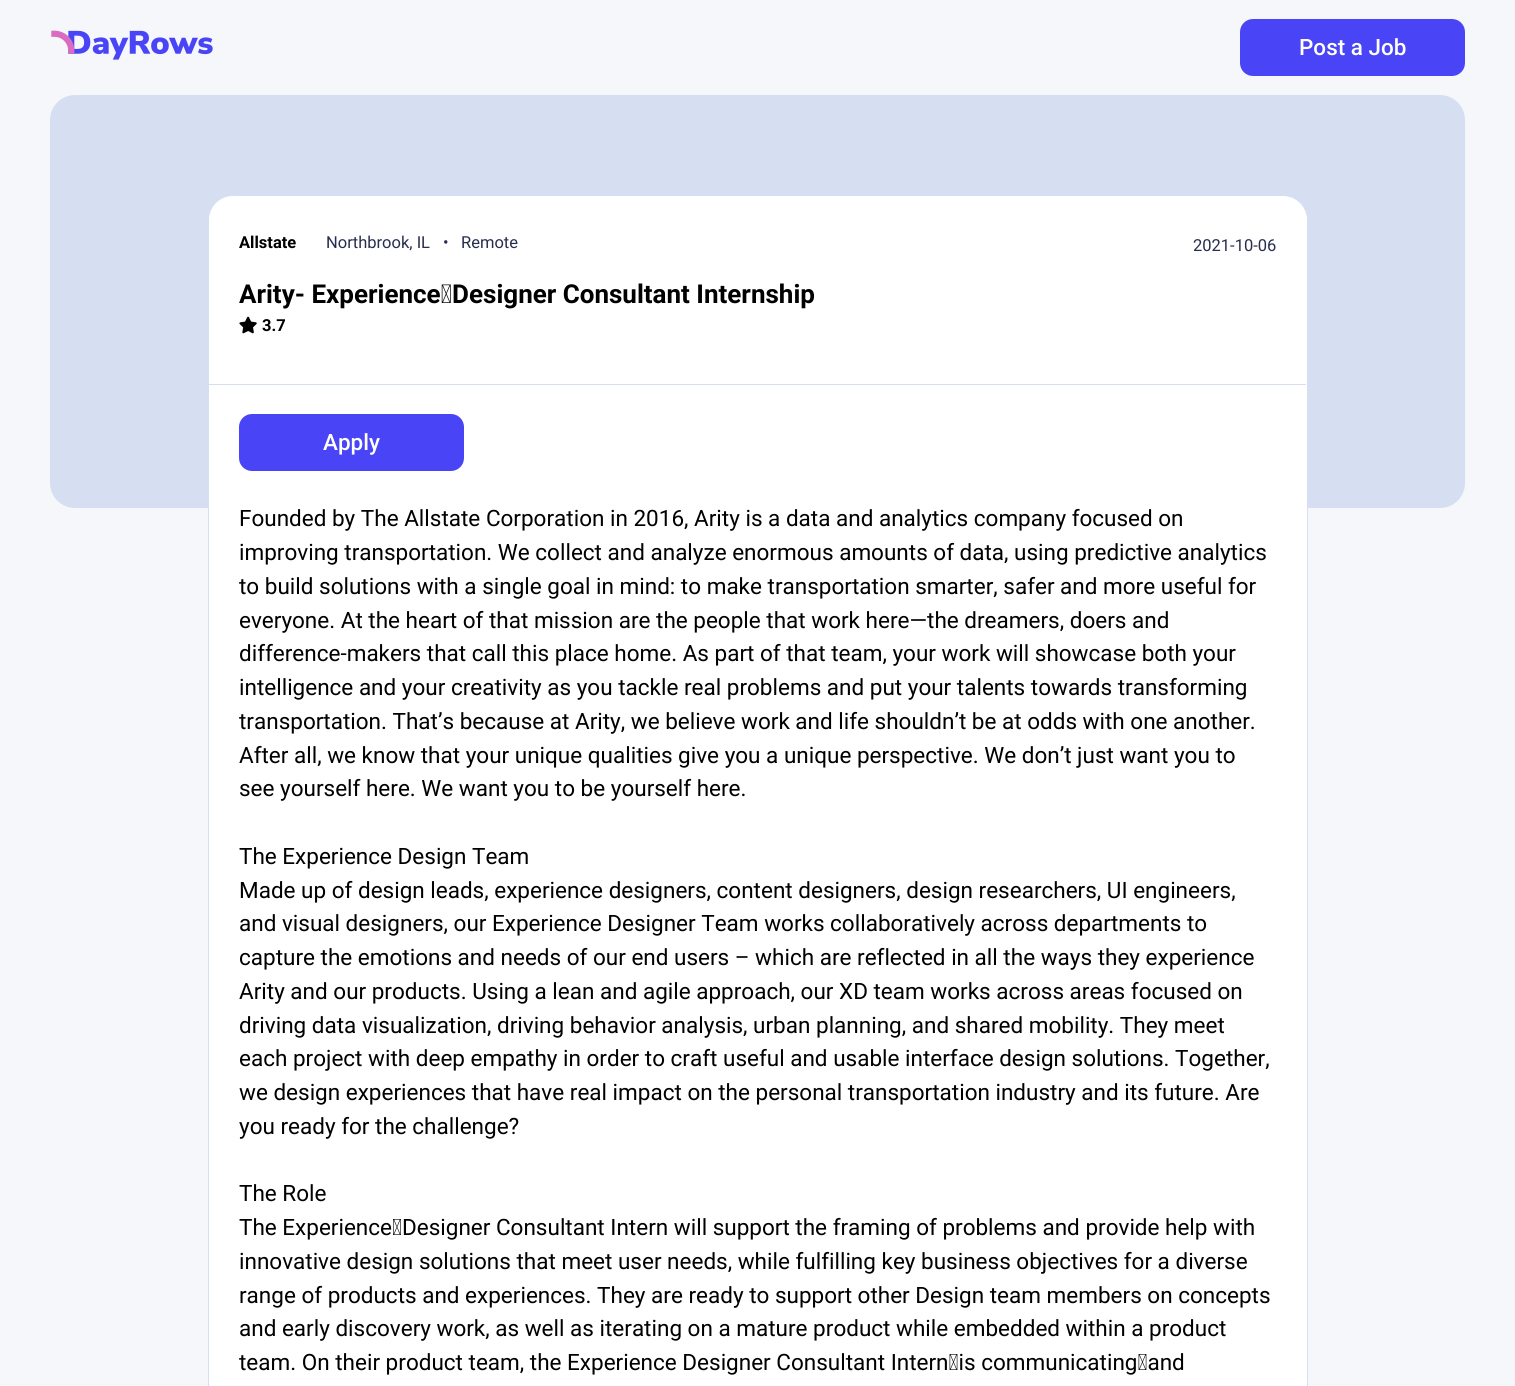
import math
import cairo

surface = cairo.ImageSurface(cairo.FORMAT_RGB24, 1515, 1386)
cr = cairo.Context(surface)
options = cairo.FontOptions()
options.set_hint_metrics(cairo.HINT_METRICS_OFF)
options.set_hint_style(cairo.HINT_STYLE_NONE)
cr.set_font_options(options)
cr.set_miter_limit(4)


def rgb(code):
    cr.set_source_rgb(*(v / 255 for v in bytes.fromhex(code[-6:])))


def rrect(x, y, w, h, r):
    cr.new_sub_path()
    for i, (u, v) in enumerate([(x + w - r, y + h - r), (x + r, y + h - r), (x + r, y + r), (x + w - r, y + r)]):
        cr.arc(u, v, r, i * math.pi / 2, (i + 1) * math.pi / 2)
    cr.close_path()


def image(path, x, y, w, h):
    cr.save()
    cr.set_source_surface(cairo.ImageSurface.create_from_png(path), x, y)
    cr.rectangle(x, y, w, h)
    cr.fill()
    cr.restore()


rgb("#f5f7fb")
cr.paint()
image("img/1.png", 51, 30, 162, 30)
rgb("#4945f6")
rrect(1240, 19, 225, 57, 13)
cr.fill()
rgb("#d6dff1")
rrect(50, 95, 1415, 413, 25)
cr.fill()
rgb("#ffffff")
rrect(208.5, 195.5, 1099, 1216, 24.5)
cr.fill_preserve()
rgb("#d6dff1")
cr.set_line_width(1)
cr.stroke()
image("img/2.png", 239, 316, 18, 18)
cr.rectangle(209, 384, 1097, 1)
cr.fill()
rgb("#4945f6")
rrect(239, 414, 225, 57, 13)
cr.fill()
cr.select_font_face("Roboto Medium")
cr.set_font_size(22.5)
rgb("#ffffff")
cr.move_to(1299, 55)
cr.show_text("Post a Job")
cr.select_font_face("Roboto", cairo.FONT_SLANT_NORMAL, cairo.FONT_WEIGHT_BOLD)
cr.set_font_size(16.5)
rgb("#000000")
cr.move_to(239, 248)
cr.show_text("Allstate")
cr.select_font_face("Roboto")
rgb("#272d4e")
for x, y, s in [
    (326, 248, "Northbrook, IL"),
    (443, 248, "•"),
    (461, 248, "Remote"),
    (1193, 251, "2021-10-06"),
]:
    cr.move_to(x, y)
    cr.show_text(s)
cr.select_font_face("Roboto", cairo.FONT_SLANT_NORMAL, cairo.FONT_WEIGHT_BOLD)
cr.set_font_size(26)
rgb("#000000")
cr.move_to(239, 303)
cr.show_text("Arity- Experience Designer Consultant Internship")
cr.set_font_size(16.5)
cr.move_to(262, 331)
cr.show_text("3.7")
cr.select_font_face("Roboto Medium")
cr.set_font_size(22.5)
rgb("#ffffff")
cr.move_to(323, 450)
cr.show_text("Apply")
cr.select_font_face("Roboto")
rgb("#000000")
for x, y, s in [
    (239, 526, "Founded by The Allstate Corporation in 2016, Arity is a data and analytics company focused on"),
    (239, 560, "improving transportation. We collect and analyze enormous amounts of data, using predictive analytics"),
    (239, 594, "to build solutions with a single goal in mind: to make transportation smarter, safer and more useful for"),
    (239, 628, "everyone. At the heart of that mission are the people that work here—the dreamers, doers and"),
    (239, 661, "difference-makers that call this place home. As part of that team, your work will showcase both your"),
    (239, 695, "intelligence and your creativity as you tackle real problems and put your talents towards transforming"),
    (239, 729, "transportation. That’s because at Arity, we believe work and life shouldn’t be at odds with one another."),
    (239, 763, "After all, we know that your unique qualities give you a unique perspective. We don’t just want you to"),
    (239, 796, "see yourself here. We want you to be yourself here."),
    (239, 864, "The Experience Design Team"),
    (239, 898, "Made up of design leads, experience designers, content designers, design researchers, UI engineers,"),
    (239, 931, "and visual designers, our Experience Designer Team works collaboratively across departments to"),
    (239, 965, "capture the emotions and needs of our end users – which are reflected in all the ways they experience"),
    (239, 999, "Arity and our products. Using a lean and agile approach, our XD team works across areas focused on"),
    (239, 1033, "driving data visualization, driving behavior analysis, urban planning, and shared mobility. They meet"),
    (239, 1066, "each project with deep empathy in order to craft useful and usable interface design solutions. Together,"),
    (239, 1100, "we design experiences that have real impact on the personal transportation industry and its future. Are"),
    (239, 1134, "you ready for the challenge?"),
    (239, 1201, "The Role"),
    (239, 1235, "The Experience Designer Consultant Intern will support the framing of problems and provide help with"),
    (239, 1269, "innovative design solutions that meet user needs, while fulfilling key business objectives for a diverse"),
    (239, 1303, "range of products and experiences. They are ready to support other Design team members on concepts"),
    (239, 1336, "and early discovery work, as well as iterating on a mature product while embedded within a product"),
    (239, 1370, "team. On their product team, the Experience Designer Consultant Intern is communicating and"),
]:
    cr.move_to(x, y)
    cr.show_text(s)
surface.write_to_png("page.png")
